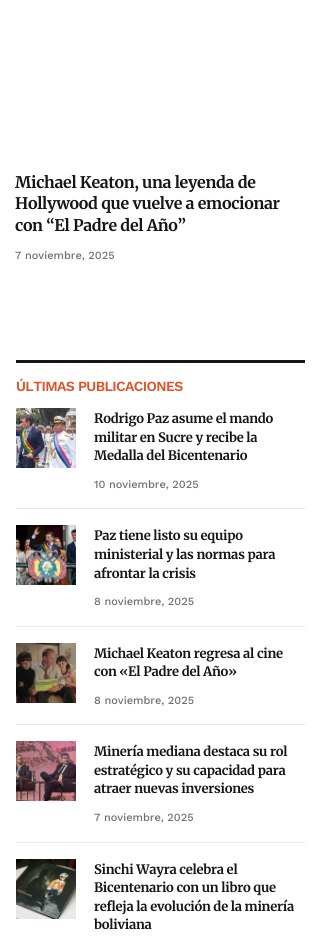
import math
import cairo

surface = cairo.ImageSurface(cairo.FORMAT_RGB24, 320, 939)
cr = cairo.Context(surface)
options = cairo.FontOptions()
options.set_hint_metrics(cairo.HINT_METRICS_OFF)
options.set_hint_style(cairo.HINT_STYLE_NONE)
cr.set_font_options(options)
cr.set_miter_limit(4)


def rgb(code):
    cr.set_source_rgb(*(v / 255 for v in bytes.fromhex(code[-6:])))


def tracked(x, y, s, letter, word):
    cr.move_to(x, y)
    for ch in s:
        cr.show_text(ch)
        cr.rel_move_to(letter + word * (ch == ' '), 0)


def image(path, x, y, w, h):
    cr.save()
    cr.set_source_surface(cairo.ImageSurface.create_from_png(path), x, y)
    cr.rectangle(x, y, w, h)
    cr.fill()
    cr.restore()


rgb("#ffffff")
cr.paint()
rgb("#161616")
cr.rectangle(16, 360, 289, 3)
cr.fill()
image("img/1.png", 16, 408, 60, 60)
rgb("#e8e8e8")
cr.rectangle(16, 508, 289, 1)
cr.fill()
image("img/2.png", 16, 525, 60, 60)
cr.rectangle(16, 626, 289, 1)
cr.fill()
image("img/3.png", 16, 643, 60, 60)
cr.rectangle(16, 724, 289, 1)
cr.fill()
image("img/4.png", 16, 741, 60, 60)
cr.rectangle(16, 842, 289, 1)
cr.fill()
image("img/5.png", 16, 859, 60, 60)
cr.select_font_face("Merriweather Light")
cr.set_font_size(16)
rgb("#161616")
for x, y, s in [
    (15, 188, "Michael Keaton, una leyenda de"),
    (15, 209, "Hollywood que vuelve a emocionar"),
    (15, 231, "con “El Padre del Año”"),
]:
    tracked(x, y, s, -0.3, 0)
cr.select_font_face("Work Sans Medium")
cr.set_font_size(11)
rgb("#707070")
cr.move_to(15, 259)
cr.show_text("7 noviembre, 2025")
cr.select_font_face("Work Sans SemiBold")
cr.set_font_size(14)
rgb("#e05126")
tracked(16, 391, "ÚLTIMAS PUBLICACIONES", -0.6, 0)
cr.select_font_face("Merriweather Light")
cr.set_font_size(13)
rgb("#161616")
for x, y, s in [
    (94, 423, "Rodrigo Paz asume el mando"),
    (94, 442, "militar en Sucre y recibe la"),
    (94, 460, "Medalla del Bicentenario"),
]:
    tracked(x, y, s, -0.25, 0)
cr.select_font_face("Work Sans Medium")
cr.set_font_size(11)
rgb("#707070")
cr.move_to(94, 488)
cr.show_text("10 noviembre, 2025")
cr.select_font_face("Merriweather Light")
cr.set_font_size(13)
rgb("#161616")
for x, y, s in [
    (94, 540, "Paz tiene listo su equipo"),
    (94, 559, "ministerial y las normas para"),
    (94, 578, "afrontar la crisis"),
]:
    tracked(x, y, s, -0.25, 0)
cr.select_font_face("Work Sans Medium")
cr.set_font_size(11)
rgb("#707070")
cr.move_to(94, 605)
cr.show_text("8 noviembre, 2025")
cr.select_font_face("Merriweather Light")
cr.set_font_size(13)
rgb("#161616")
tracked(94, 658, "Michael Keaton regresa al cine", -0.25, 0)
tracked(94, 676, "con «El Padre del Año»", -0.25, 0)
cr.select_font_face("Work Sans Medium")
cr.set_font_size(11)
rgb("#707070")
cr.move_to(94, 704)
cr.show_text("8 noviembre, 2025")
cr.select_font_face("Merriweather Light")
cr.set_font_size(13)
rgb("#161616")
for x, y, s in [
    (94, 756, "Minería mediana destaca su rol"),
    (94, 775, "estratégico y su capacidad para"),
    (94, 793, "atraer nuevas inversiones"),
]:
    tracked(x, y, s, -0.25, 0)
cr.select_font_face("Work Sans Medium")
cr.set_font_size(11)
rgb("#707070")
cr.move_to(94, 821)
cr.show_text("7 noviembre, 2025")
cr.select_font_face("Merriweather Light")
cr.set_font_size(13)
rgb("#161616")
for x, y, s in [
    (94, 874, "Sinchi Wayra celebra el"),
    (94, 892, "Bicentenario con un libro que"),
    (94, 911, "refleja la evolución de la minería"),
    (94, 929, "boliviana"),
]:
    tracked(x, y, s, -0.25, 0)
surface.write_to_png("page.png")
